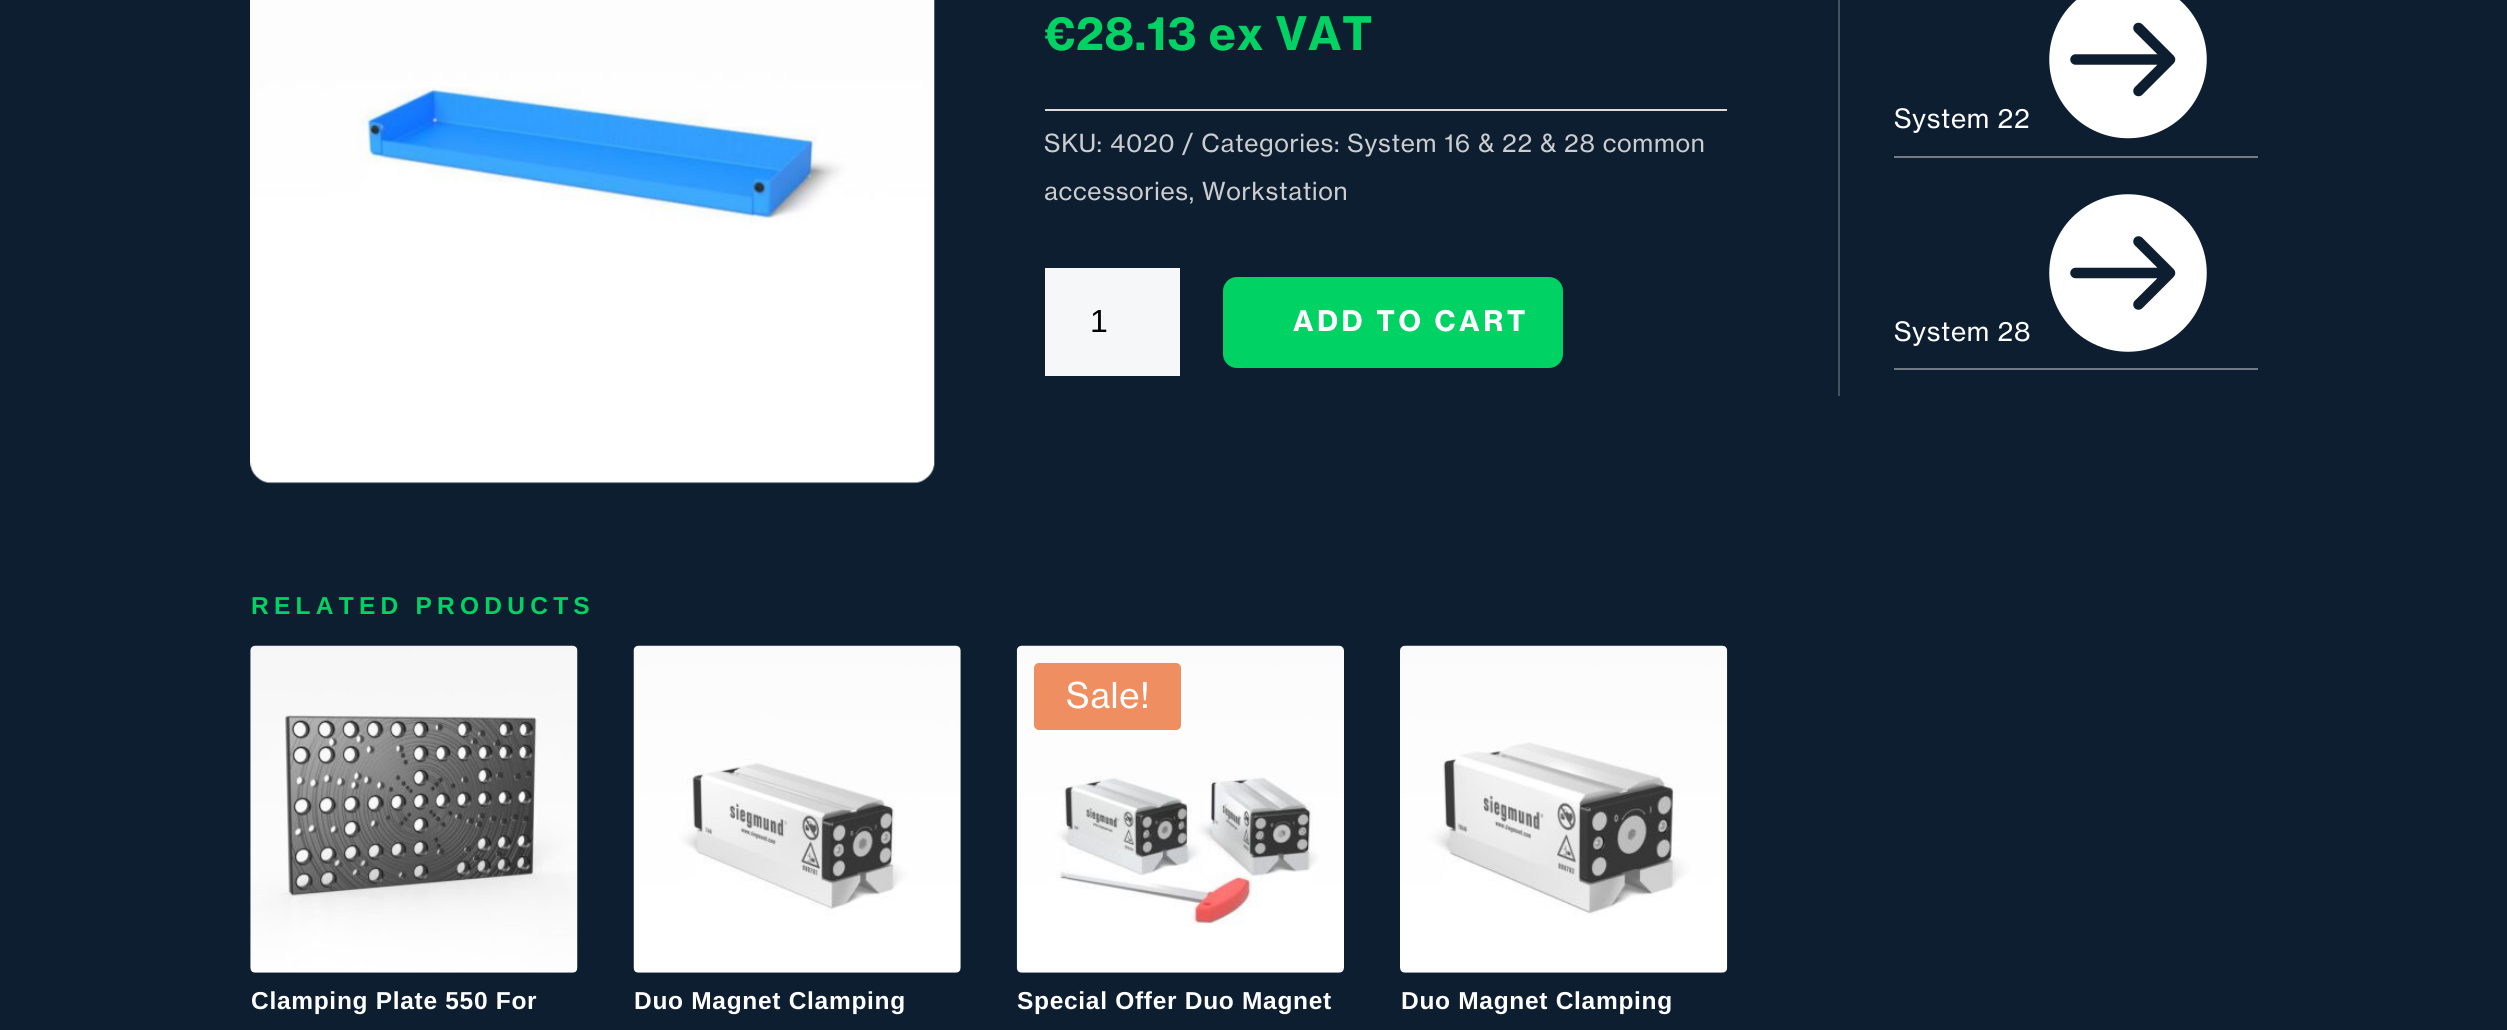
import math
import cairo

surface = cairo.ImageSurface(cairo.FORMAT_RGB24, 2507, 1030)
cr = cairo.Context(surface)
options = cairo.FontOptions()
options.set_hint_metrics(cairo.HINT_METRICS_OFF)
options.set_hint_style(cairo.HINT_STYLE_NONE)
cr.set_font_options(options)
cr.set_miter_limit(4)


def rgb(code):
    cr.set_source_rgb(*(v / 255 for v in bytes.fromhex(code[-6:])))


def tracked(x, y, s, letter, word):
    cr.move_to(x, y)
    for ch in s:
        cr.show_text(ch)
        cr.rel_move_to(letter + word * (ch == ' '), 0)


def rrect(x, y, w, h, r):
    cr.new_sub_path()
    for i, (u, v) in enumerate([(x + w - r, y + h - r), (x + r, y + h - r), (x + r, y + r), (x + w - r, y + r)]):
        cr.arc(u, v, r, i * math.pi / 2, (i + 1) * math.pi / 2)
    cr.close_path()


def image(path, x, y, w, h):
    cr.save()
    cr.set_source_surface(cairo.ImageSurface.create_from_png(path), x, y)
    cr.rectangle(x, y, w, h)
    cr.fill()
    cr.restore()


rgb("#0e1e31")
cr.paint()
image("img/1.png", 250, 0, 685, 484)
rgb("#dadada")
cr.rectangle(1045, 109, 682, 2)
cr.fill()
rgb("#f5f7f9")
cr.rectangle(1045, 268, 135, 108)
cr.fill()
rgb("#00d263")
rrect(1230, 284, 326, 77, 7)
cr.fill_preserve()
cr.set_line_width(14)
cr.stroke()
image("img/2.png", 250, 645, 328, 328)
image("img/3.png", 633, 645, 328, 328)
image("img/4.png", 1016, 645, 328, 328)
rgb("#ef8f61")
rrect(1034, 663, 147, 67, 5)
cr.fill()
image("img/5.png", 1400, 645, 328, 328)
rgb("#455260")
cr.rectangle(1838, 0, 2, 396)
cr.fill()
rgb("#717b87")
cr.rectangle(1894, 156, 364, 2)
cr.fill()
image("img/6.png", 2049, 0, 158, 139)
cr.rectangle(1894, 368, 364, 2)
cr.fill()
image("img/7.png", 2049, 194, 158, 158)
cr.select_font_face("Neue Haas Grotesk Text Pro", cairo.FONT_SLANT_NORMAL, cairo.FONT_WEIGHT_BOLD)
cr.set_font_size(45.5)
rgb("#00d263")
tracked(1044, 50, "€28.13 ex VAT", 0.7, 0)
cr.select_font_face("Neue Haas Grotesk Text Pro")
cr.set_font_size(24.5)
rgb("#cbcdce")
tracked(1044, 152, "SKU: 4020 / Categories: System 16 & 22 & 28 common", 0.7, 0)
tracked(1044, 200, "accessories, Workstation", 0.7, 0)
cr.select_font_face("Liberation Sans")
cr.set_font_size(32)
rgb("#000000")
cr.move_to(1090, 332)
cr.show_text("1")
cr.select_font_face("Neue Haas Grotesk Text Pro", cairo.FONT_SLANT_NORMAL, cairo.FONT_WEIGHT_BOLD)
cr.set_font_size(28)
rgb("#ffffff")
tracked(1293, 331, "ADD TO CART", 3.5, 0)
cr.select_font_face("Liberation Sans", cairo.FONT_SLANT_NORMAL, cairo.FONT_WEIGHT_BOLD)
cr.set_font_size(24.5)
rgb("#00d263")
tracked(251, 614, "RELATED PRODUCTS", 5.25, 0)
rgb("#ffffff")
tracked(251, 1009, "Clamping Plate 550 For", 0.7, 0)
tracked(634, 1009, "Duo Magnet Clamping", 0.7, 0)
cr.select_font_face("Neue Haas Grotesk Text Pro")
cr.set_font_size(35)
tracked(1066, 708, "Sale!", 0.7, 0)
cr.select_font_face("Liberation Sans", cairo.FONT_SLANT_NORMAL, cairo.FONT_WEIGHT_BOLD)
cr.set_font_size(24.5)
tracked(1017, 1009, "Special Offer Duo Magnet", 0.7, 0)
tracked(1401, 1009, "Duo Magnet Clamping", 0.7, 0)
cr.select_font_face("Neue Haas Grotesk Text Pro")
cr.set_font_size(26.25)
tracked(1894, 128, "System 22", 0.7, 0)
tracked(1894, 341, "System 28", 0.7, 0)
surface.write_to_png("page.png")
